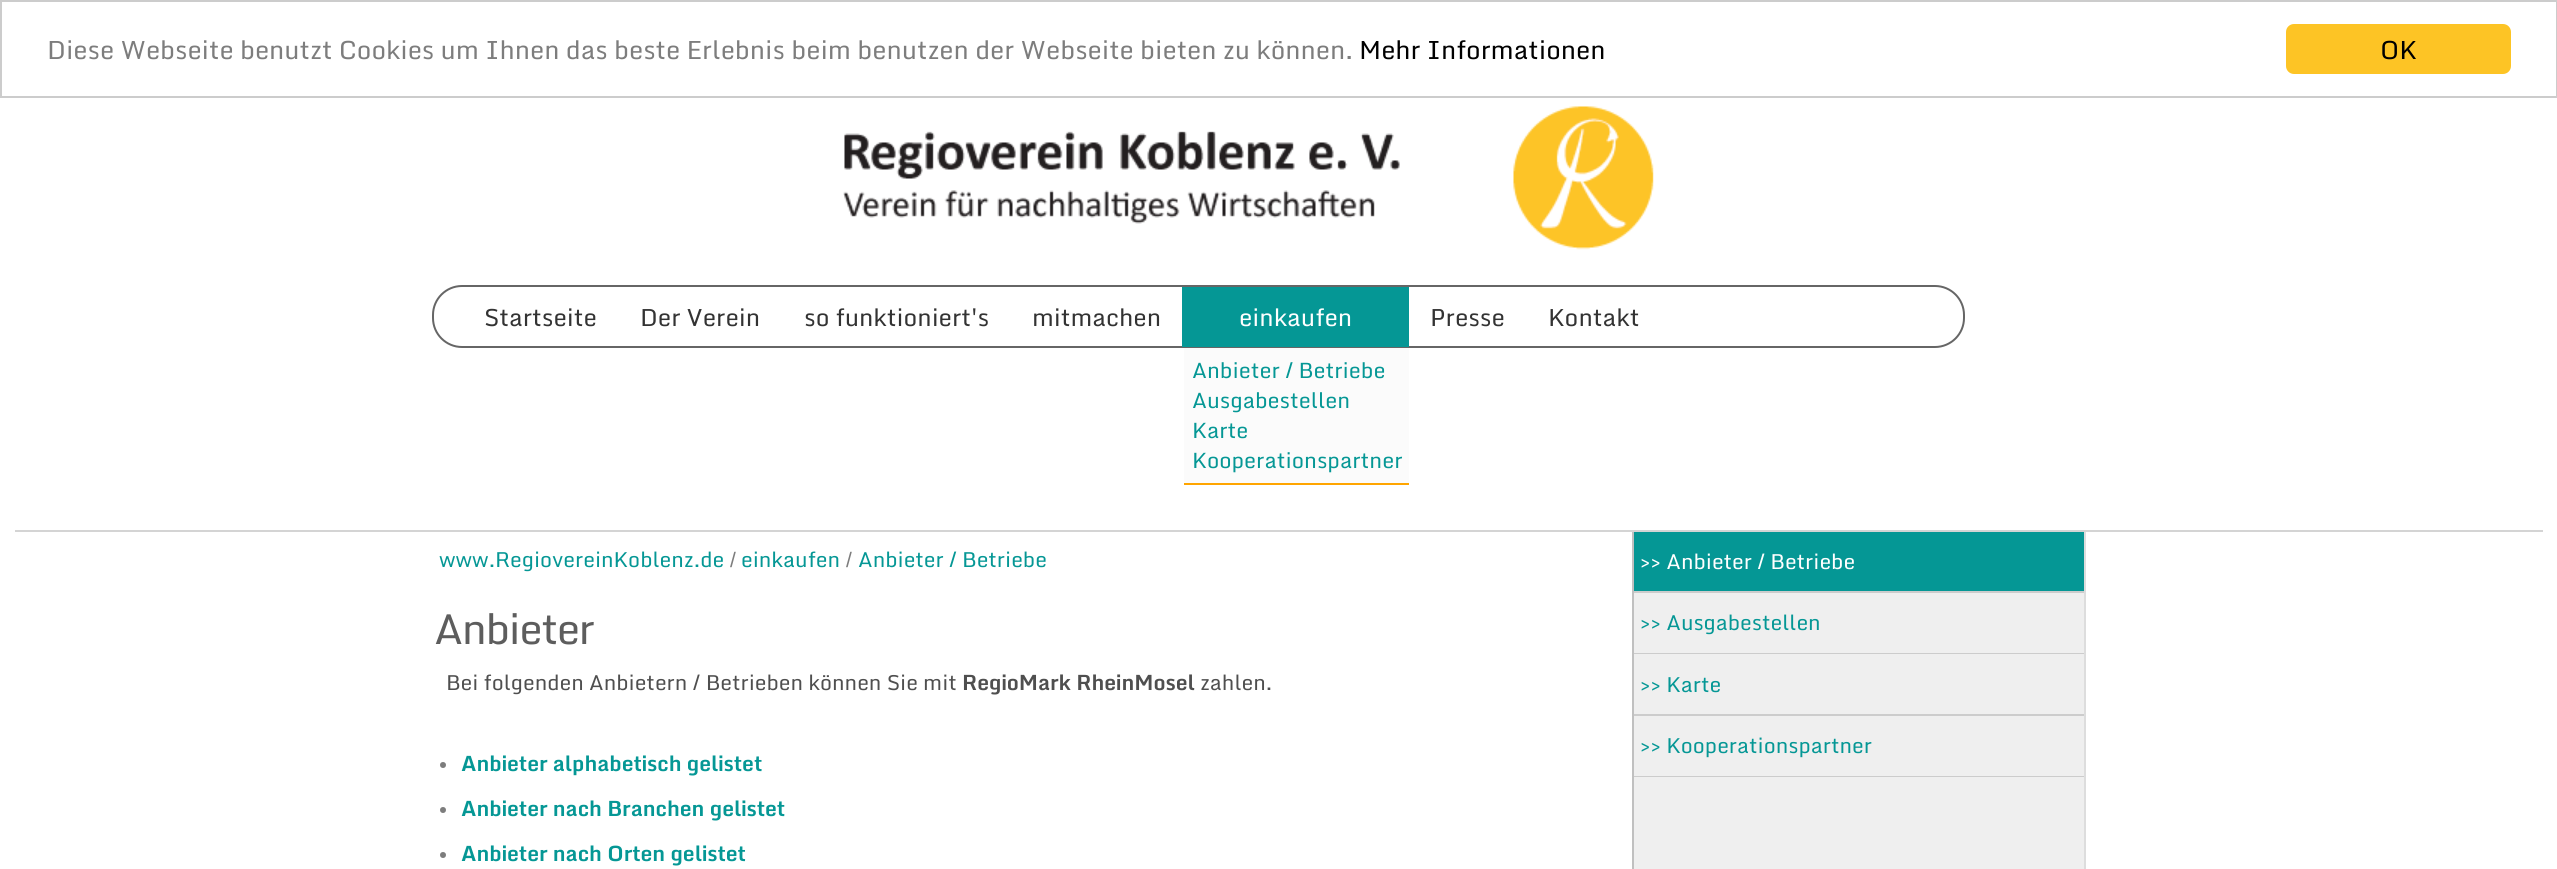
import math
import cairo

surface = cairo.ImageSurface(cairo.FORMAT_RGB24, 2557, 869)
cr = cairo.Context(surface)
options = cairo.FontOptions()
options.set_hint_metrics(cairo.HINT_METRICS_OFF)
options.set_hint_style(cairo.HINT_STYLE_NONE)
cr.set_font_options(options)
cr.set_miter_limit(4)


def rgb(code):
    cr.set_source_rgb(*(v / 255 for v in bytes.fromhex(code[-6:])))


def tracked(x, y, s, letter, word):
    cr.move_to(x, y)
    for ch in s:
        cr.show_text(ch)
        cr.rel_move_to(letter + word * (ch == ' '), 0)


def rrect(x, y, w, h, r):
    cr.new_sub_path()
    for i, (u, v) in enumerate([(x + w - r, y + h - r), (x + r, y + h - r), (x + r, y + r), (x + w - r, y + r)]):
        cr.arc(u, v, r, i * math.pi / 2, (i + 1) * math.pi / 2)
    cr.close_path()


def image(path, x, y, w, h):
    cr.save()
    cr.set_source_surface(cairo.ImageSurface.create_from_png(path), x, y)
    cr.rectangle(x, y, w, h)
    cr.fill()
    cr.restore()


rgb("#ffffff")
cr.paint()
cr.rectangle(1, 1, 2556, 96)
rgb("#cccccc")
cr.stroke()
rgb("#fdc425")
rrect(2286, 24, 225, 50, 8)
cr.fill()
image("img/1.png", 843, 106, 811, 144)
for x, y, w, h, color in [
    (2084, 531, 2, 338, "#dddddd"),
    (1632, 531, 2, 338, "#c0c0c0"),
    (15, 530, 2528, 2, "#d4d4d4"),
]:
    rgb(color)
    cr.rectangle(x, y, w, h)
    cr.fill()
rrect(433, 286, 1531, 61, 29)
rgb("#666666")
cr.stroke()
for x, y, w, h, color in [
    (1182, 287, 227, 60, "#059795"),
    (1184, 348, 225, 135, "#fbfbfb"),
    (1184, 483, 225, 2, "#ffa500"),
]:
    rgb(color)
    cr.rectangle(x, y, w, h)
    cr.fill()
rgb("#7d7d7d")
cr.arc(443, 765, 3, 0, 2 * math.pi)
cr.fill()
cr.arc(443, 810, 3, 0, 2 * math.pi)
cr.fill()
cr.arc(443, 855, 3, 0, 2 * math.pi)
cr.fill()
for x, y, w, h, color in [
    (1634, 593, 450, 276, "#efefef"),
    (1634, 532, 450, 59, "#059795"),
    (1634, 591, 450, 2, "#cccccc"),
    (1634, 653, 450, 1, "#cccccc"),
    (1634, 714, 450, 2, "#cccccc"),
    (1634, 776, 450, 1, "#cccccc"),
]:
    rgb(color)
    cr.rectangle(x, y, w, h)
    cr.fill()
cr.select_font_face("Monda")
cr.set_font_size(25.5)
rgb("#7d7d7d")
cr.move_to(47, 59)
cr.show_text("Diese Webseite benutzt Cookies um Ihnen das beste Erlebnis beim benutzen der Webseite bieten zu können.")
rgb("#000000")
cr.move_to(1359, 59)
cr.show_text("Mehr Informationen")
cr.move_to(2380, 59)
cr.show_text("OK")
cr.set_font_size(24)
rgb("#333333")
for x, y, s in [
    (484, 326, "Startseite"),
    (640, 326, "Der Verein"),
    (804, 326, "so funktioniert's"),
    (1032, 326, "mitmachen"),
]:
    cr.move_to(x, y)
    cr.show_text(s)
rgb("#ffffff")
cr.move_to(1239, 326)
cr.show_text("einkaufen")
cr.set_font_size(21.5)
rgb("#059795")
for x, y, s in [
    (1192, 378, "Anbieter / Betriebe"),
    (1192, 408, "Ausgabestellen"),
    (1192, 438, "Karte"),
    (1192, 468, "Kooperationspartner"),
]:
    cr.move_to(x, y)
    cr.show_text(s)
cr.set_font_size(24)
rgb("#333333")
cr.move_to(1430, 326)
cr.show_text("Presse")
cr.move_to(1548, 326)
cr.show_text("Kontakt")
cr.set_font_size(21)
rgb("#059795")
cr.move_to(439, 567)
cr.show_text("www.RegiovereinKoblenz.de")
cr.select_font_face("Liberation Sans")
rgb("#7d7d7d")
cr.move_to(730, 567)
cr.show_text("/")
cr.select_font_face("Monda")
rgb("#059795")
cr.move_to(741, 567)
cr.show_text("einkaufen")
cr.select_font_face("Liberation Sans")
rgb("#7d7d7d")
cr.move_to(846, 567)
cr.show_text("/")
cr.select_font_face("Monda")
rgb("#059795")
cr.move_to(858, 567)
cr.show_text("Anbieter / Betriebe")
cr.set_font_size(42)
rgb("#5d5d5d")
tracked(434, 644, "Anbieter", -1.5, 0)
cr.set_font_size(21)
rgb("#4f4f4f")
cr.move_to(446, 690)
cr.show_text("Bei folgenden Anbietern / Betrieben können Sie mit")
cr.select_font_face("Monda", cairo.FONT_SLANT_NORMAL, cairo.FONT_WEIGHT_BOLD)
cr.move_to(962, 690)
cr.show_text("RegioMark RheinMosel")
cr.select_font_face("Monda")
cr.move_to(1200, 690)
cr.show_text("zahlen.")
cr.select_font_face("Monda", cairo.FONT_SLANT_NORMAL, cairo.FONT_WEIGHT_BOLD)
rgb("#059795")
for x, y, s in [
    (461, 771, "Anbieter alphabetisch gelistet"),
    (461, 816, "Anbieter nach Branchen gelistet"),
    (461, 861, "Anbieter nach Orten gelistet"),
]:
    cr.move_to(x, y)
    cr.show_text(s)
cr.select_font_face("Monda")
rgb("#ffffff")
cr.move_to(1640, 569)
cr.show_text(">> Anbieter / Betriebe")
rgb("#059795")
for x, y, s in [
    (1640, 630, ">> Ausgabestellen"),
    (1640, 692, ">> Karte"),
    (1640, 753, ">> Kooperationspartner"),
]:
    cr.move_to(x, y)
    cr.show_text(s)
surface.write_to_png("page.png")
